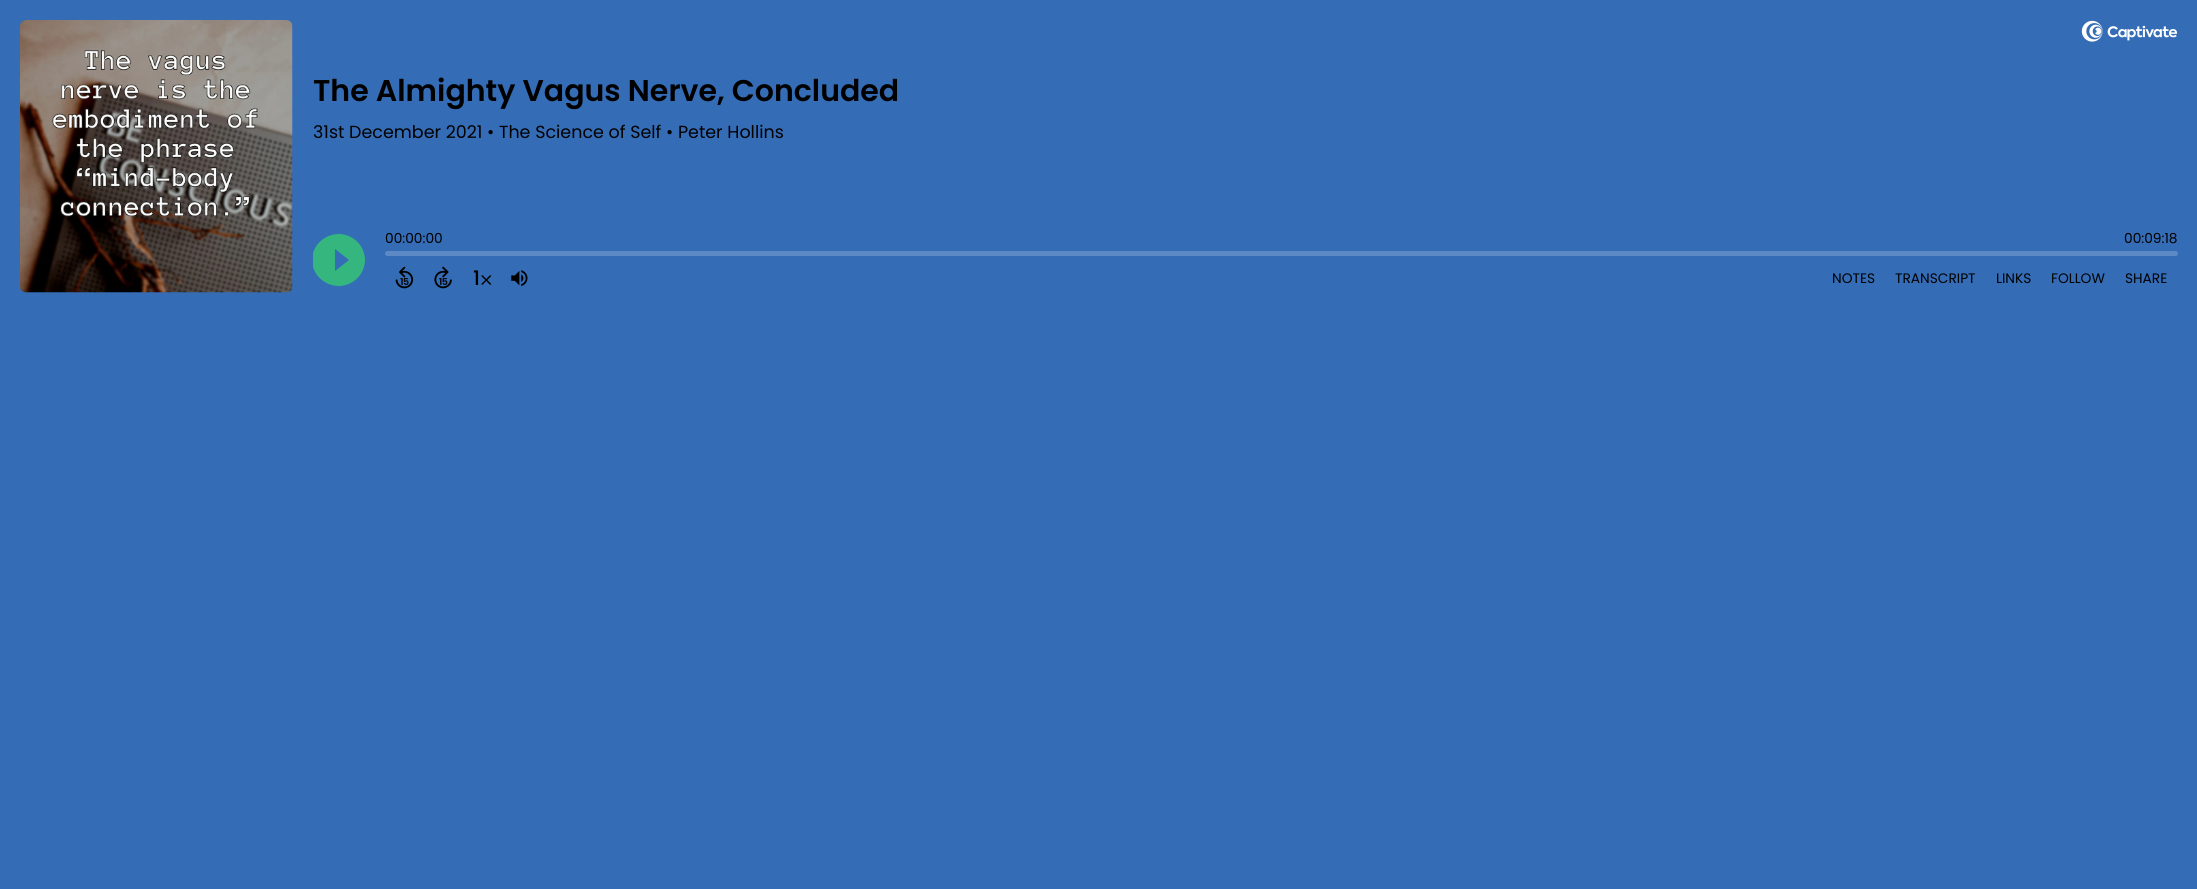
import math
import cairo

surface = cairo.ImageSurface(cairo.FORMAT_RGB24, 2197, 889)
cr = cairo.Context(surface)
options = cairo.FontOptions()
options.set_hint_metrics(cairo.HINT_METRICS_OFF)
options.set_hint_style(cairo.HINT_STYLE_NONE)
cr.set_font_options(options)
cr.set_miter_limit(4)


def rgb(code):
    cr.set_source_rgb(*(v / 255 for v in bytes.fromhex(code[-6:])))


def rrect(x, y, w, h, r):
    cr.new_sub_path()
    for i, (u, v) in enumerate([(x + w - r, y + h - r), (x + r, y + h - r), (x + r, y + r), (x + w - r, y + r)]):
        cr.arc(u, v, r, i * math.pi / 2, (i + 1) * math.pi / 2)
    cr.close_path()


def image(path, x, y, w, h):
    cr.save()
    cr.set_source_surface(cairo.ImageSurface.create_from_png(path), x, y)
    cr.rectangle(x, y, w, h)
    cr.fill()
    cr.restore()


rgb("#346cb6")
cr.paint()
image("img/1.png", 20, 20, 273, 273)
image("img/2.png", 2081, 20, 96, 22)
cr.save()
cr.rectangle(313, 234, 52, 52)
cr.clip()
rgb("#34b67e")
cr.set_fill_rule(cairo.FILL_RULE_EVEN_ODD)
cr.new_path()
cr.move_to(339, 286)
cr.curve_to(353, 286, 365, 274, 365, 260)
cr.curve_to(365, 246, 353, 234, 339, 234)
cr.curve_to(324, 234, 312, 246, 312, 260)
cr.curve_to(312, 274, 324, 286, 339, 286)
cr.close_path()
cr.move_to(335, 271)
cr.line_to(349, 260)
cr.line_to(335, 249)
cr.close_path()
cr.fill()
cr.restore()
rgb("#5d8ac5")
rrect(385, 251, 1793, 5, 2.5)
cr.fill()
image("img/3.png", 395, 266, 19, 23)
image("img/4.png", 434, 266, 18, 23)
image("img/5.png", 481, 275, 10, 10)
image("img/6.png", 511, 270, 17, 16)
cr.select_font_face("Poppins SemiBold")
cr.set_font_size(30)
rgb("#000000")
cr.move_to(313, 101)
cr.show_text("The Almighty Vagus Nerve, Concluded")
cr.select_font_face("Poppins")
cr.set_font_size(17.5)
cr.move_to(313, 138)
cr.show_text("31st December 2021 • The Science of Self • Peter Hollins")
cr.set_font_size(13.75)
cr.move_to(385, 243)
cr.show_text("00:00:00")
cr.move_to(2124, 243)
cr.show_text("00:09:18")
cr.select_font_face("Poppins Medium")
cr.set_font_size(20)
cr.move_to(473, 285)
cr.show_text("1")
cr.select_font_face("Poppins")
cr.set_font_size(13.75)
for x, y, s in [
    (1832, 283, "NOTES"),
    (1895, 283, "TRANSCRIPT"),
    (1996, 283, "LINKS"),
    (2051, 283, "FOLLOW"),
    (2125, 283, "SHARE"),
]:
    cr.move_to(x, y)
    cr.show_text(s)
surface.write_to_png("page.png")
